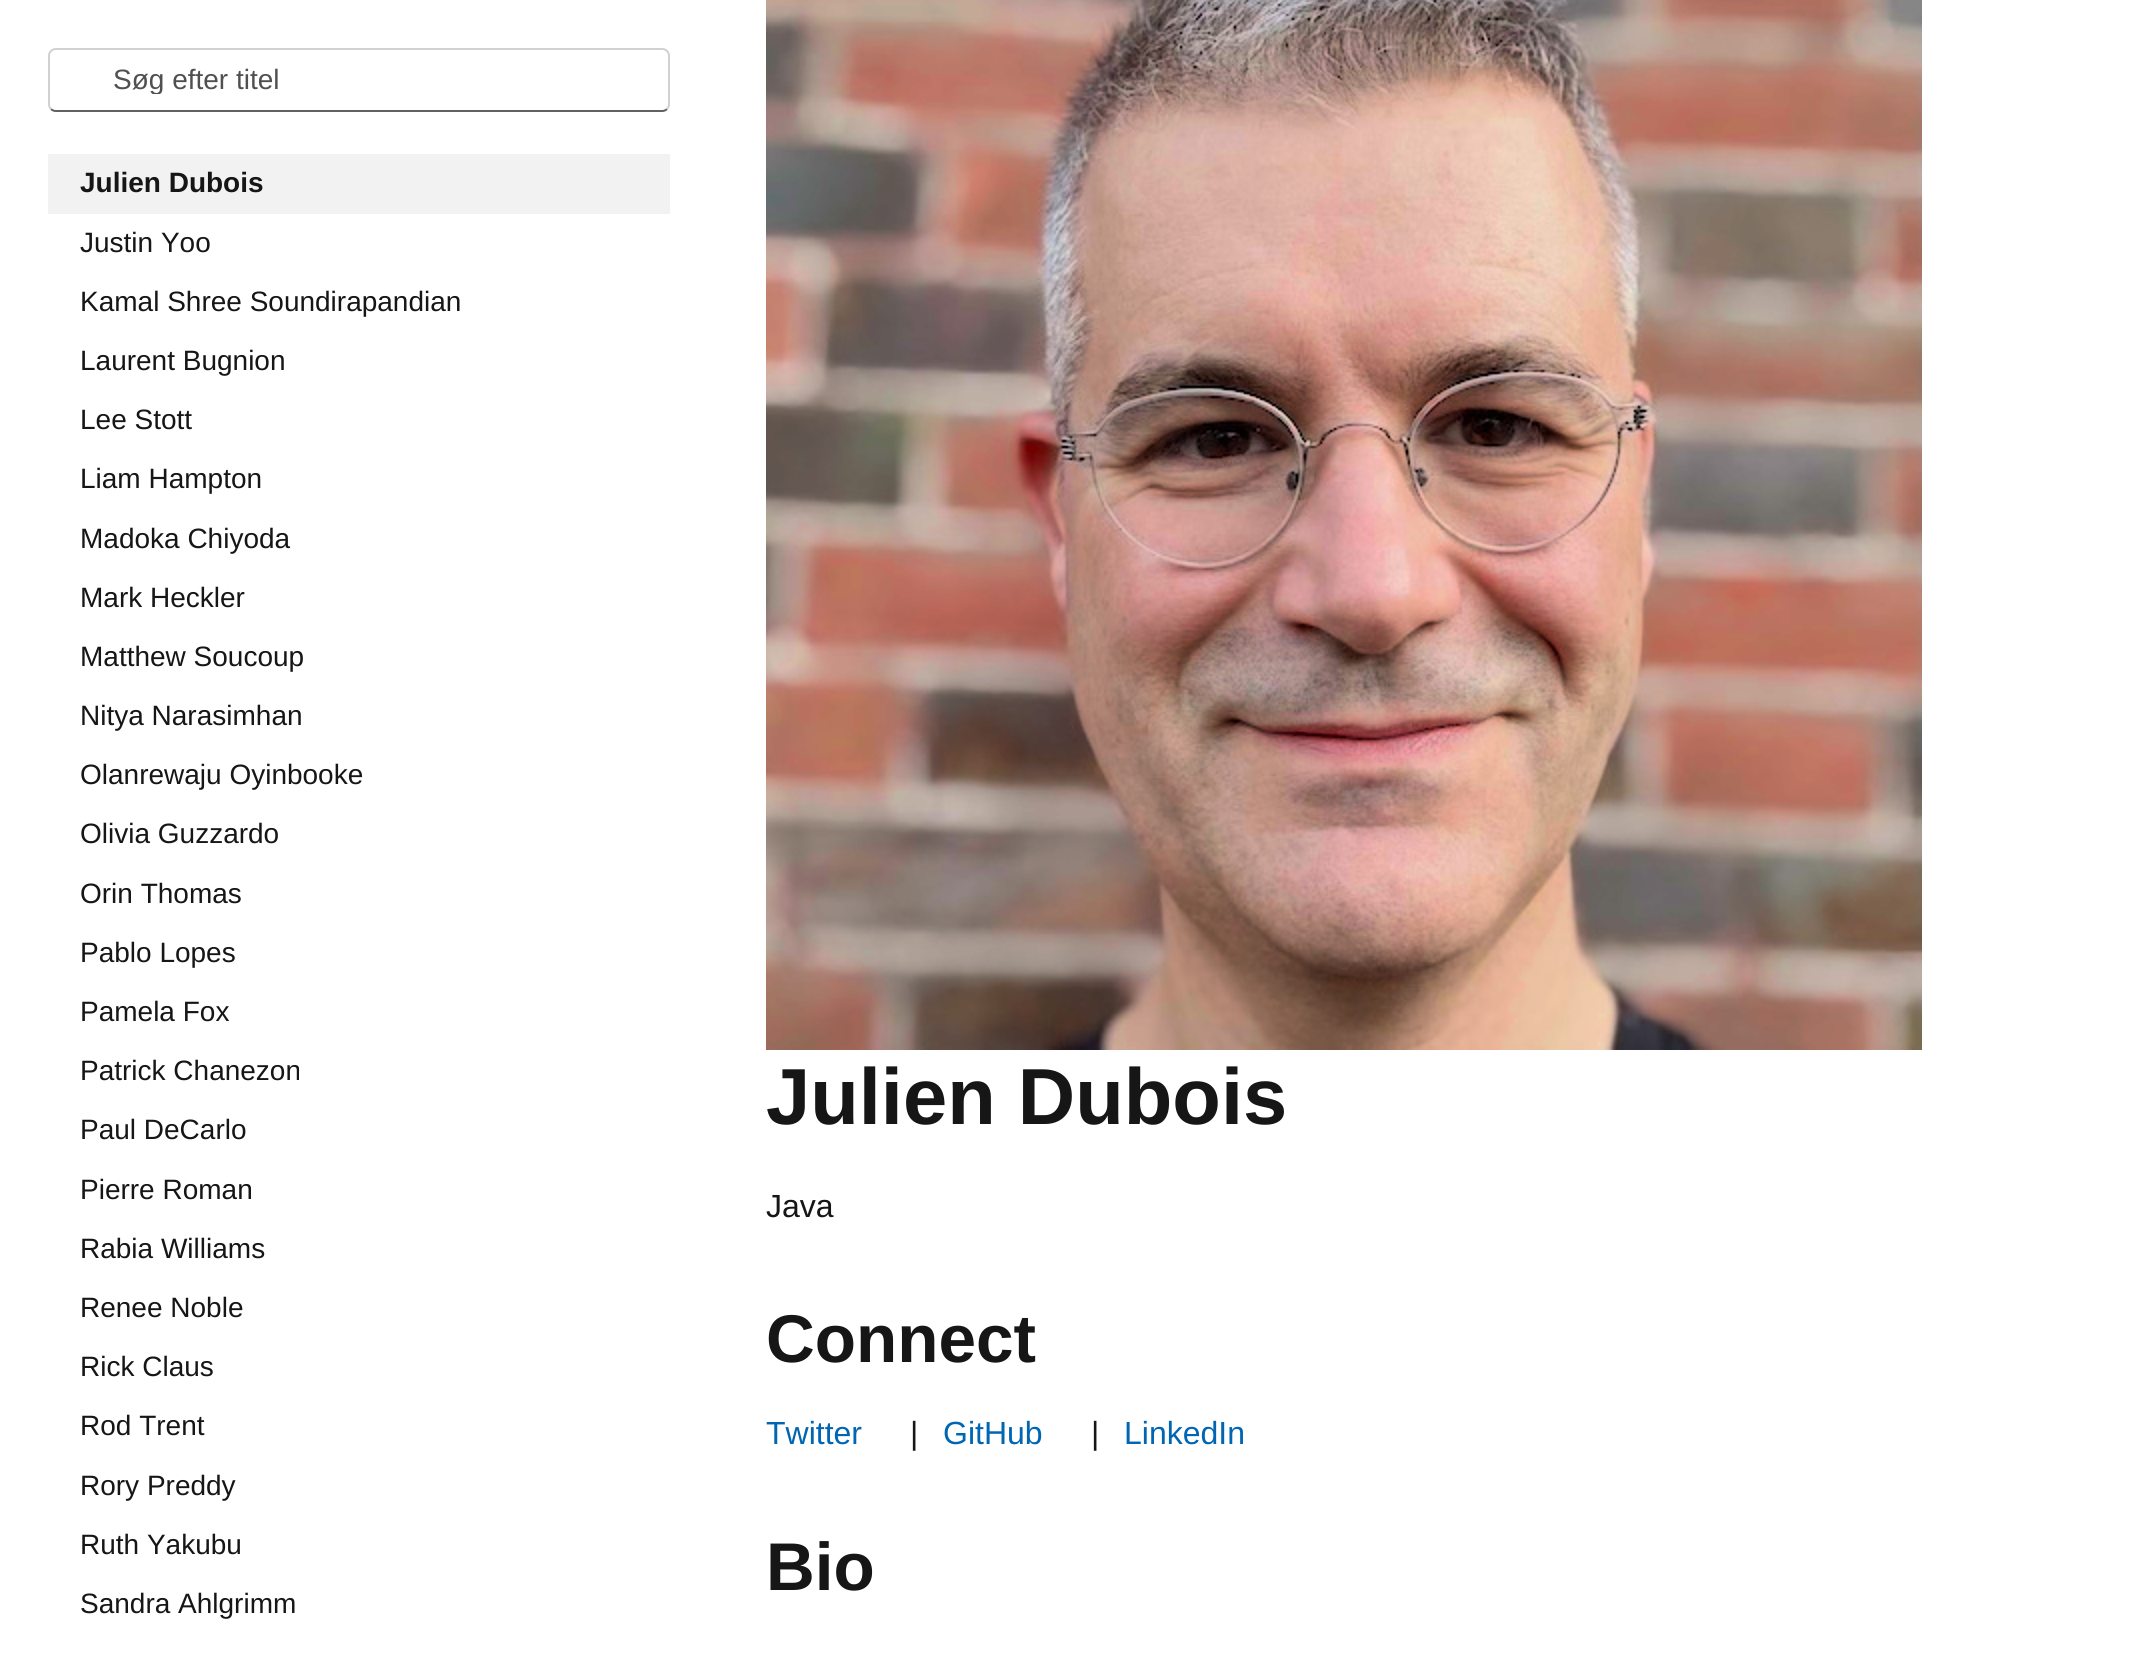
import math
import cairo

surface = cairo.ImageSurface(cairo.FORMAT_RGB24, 2153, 1670)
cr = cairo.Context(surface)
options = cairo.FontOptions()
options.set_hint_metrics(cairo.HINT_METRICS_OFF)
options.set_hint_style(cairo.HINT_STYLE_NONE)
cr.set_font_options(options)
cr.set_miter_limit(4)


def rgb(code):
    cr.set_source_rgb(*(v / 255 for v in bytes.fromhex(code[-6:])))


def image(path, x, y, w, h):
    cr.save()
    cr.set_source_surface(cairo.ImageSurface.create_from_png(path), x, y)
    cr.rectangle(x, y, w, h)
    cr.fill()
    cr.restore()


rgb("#ffffff")
cr.paint()
cr.new_path()
cr.move_to(667, 109)
cr.curve_to(665.5, 110.5, 664, 111, 662, 111)
cr.line_to(56, 111)
cr.curve_to(54, 111, 52.5, 110.5, 51, 109)
rgb("#616161")
cr.stroke()
cr.new_path()
cr.move_to(51, 109)
cr.curve_to(49.5, 107.5, 49, 106, 49, 104)
cr.line_to(49, 56)
cr.curve_to(49, 54, 49.5, 52.5, 51, 51)
cr.curve_to(52.5, 49.5, 54, 49, 56, 49)
cr.line_to(662, 49)
cr.curve_to(664, 49, 665.5, 49.5, 667, 51)
cr.curve_to(668.5, 52.5, 669, 54, 669, 56)
cr.line_to(669, 104)
cr.curve_to(669, 106, 668.5, 107.5, 667, 109)
rgb("#d1d1d1")
cr.stroke()
rgb("#f2f2f2")
cr.rectangle(48, 154, 622, 60)
cr.fill()
image("img/1.png", 766, 0, 1156, 1050)
cr.save()
cr.rectangle(114, 62, 502, 32)
cr.clip()
cr.select_font_face("Liberation Sans")
cr.set_font_size(28)
rgb("#505050")
cr.move_to(113, 89)
cr.show_text("Søg efter titel")
cr.restore()
cr.select_font_face("Liberation Sans", cairo.FONT_SLANT_NORMAL, cairo.FONT_WEIGHT_BOLD)
cr.set_font_size(28)
rgb("#161616")
cr.move_to(80, 192)
cr.show_text("Julien Dubois")
cr.select_font_face("Liberation Sans")
for x, y, s in [
    (80, 252, "Justin Yoo"),
    (80, 311, "Kamal Shree Soundirapandian"),
    (80, 370, "Laurent Bugnion"),
    (80, 429, "Lee Stott"),
    (80, 488, "Liam Hampton"),
    (80, 548, "Madoka Chiyoda"),
    (80, 607, "Mark Heckler"),
    (80, 666, "Matthew Soucoup"),
    (80, 725, "Nitya Narasimhan"),
    (80, 784, "Olanrewaju Oyinbooke"),
    (80, 843, "Olivia Guzzardo"),
    (80, 903, "Orin Thomas"),
    (80, 962, "Pablo Lopes"),
    (80, 1021, "Pamela Fox"),
    (80, 1080, "Patrick Chanezon"),
    (80, 1139, "Paul DeCarlo"),
    (80, 1199, "Pierre Roman"),
    (80, 1258, "Rabia Williams"),
    (80, 1317, "Renee Noble"),
    (80, 1376, "Rick Claus"),
    (80, 1435, "Rod Trent"),
    (80, 1495, "Rory Preddy"),
    (80, 1554, "Ruth Yakubu"),
    (80, 1613, "Sandra Ahlgrimm"),
]:
    cr.move_to(x, y)
    cr.show_text(s)
cr.select_font_face("Liberation Sans", cairo.FONT_SLANT_NORMAL, cairo.FONT_WEIGHT_BOLD)
cr.set_font_size(79.5)
cr.move_to(766, 1124)
cr.show_text("Julien Dubois")
cr.select_font_face("Liberation Sans")
cr.set_font_size(32)
cr.move_to(766, 1217)
cr.show_text("Java")
cr.select_font_face("Liberation Sans", cairo.FONT_SLANT_NORMAL, cairo.FONT_WEIGHT_BOLD)
cr.set_font_size(67.5)
cr.move_to(766, 1362)
cr.show_text("Connect")
cr.select_font_face("Liberation Sans")
cr.set_font_size(32)
rgb("#0065b3")
cr.move_to(766, 1444)
cr.show_text("Twitter")
rgb("#161616")
cr.move_to(910, 1444)
cr.show_text("|")
rgb("#0065b3")
cr.move_to(943, 1444)
cr.show_text("GitHub")
rgb("#161616")
cr.move_to(1091, 1444)
cr.show_text("|")
rgb("#0065b3")
cr.move_to(1124, 1444)
cr.show_text("LinkedIn")
cr.select_font_face("Liberation Sans", cairo.FONT_SLANT_NORMAL, cairo.FONT_WEIGHT_BOLD)
cr.set_font_size(67.5)
rgb("#161616")
cr.move_to(766, 1590)
cr.show_text("Bio")
surface.write_to_png("page.png")
